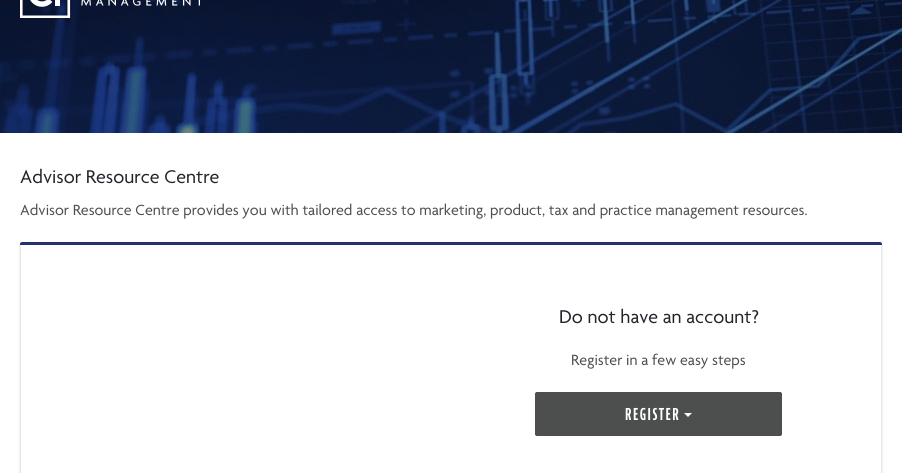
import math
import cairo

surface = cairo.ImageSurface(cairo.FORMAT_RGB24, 902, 473)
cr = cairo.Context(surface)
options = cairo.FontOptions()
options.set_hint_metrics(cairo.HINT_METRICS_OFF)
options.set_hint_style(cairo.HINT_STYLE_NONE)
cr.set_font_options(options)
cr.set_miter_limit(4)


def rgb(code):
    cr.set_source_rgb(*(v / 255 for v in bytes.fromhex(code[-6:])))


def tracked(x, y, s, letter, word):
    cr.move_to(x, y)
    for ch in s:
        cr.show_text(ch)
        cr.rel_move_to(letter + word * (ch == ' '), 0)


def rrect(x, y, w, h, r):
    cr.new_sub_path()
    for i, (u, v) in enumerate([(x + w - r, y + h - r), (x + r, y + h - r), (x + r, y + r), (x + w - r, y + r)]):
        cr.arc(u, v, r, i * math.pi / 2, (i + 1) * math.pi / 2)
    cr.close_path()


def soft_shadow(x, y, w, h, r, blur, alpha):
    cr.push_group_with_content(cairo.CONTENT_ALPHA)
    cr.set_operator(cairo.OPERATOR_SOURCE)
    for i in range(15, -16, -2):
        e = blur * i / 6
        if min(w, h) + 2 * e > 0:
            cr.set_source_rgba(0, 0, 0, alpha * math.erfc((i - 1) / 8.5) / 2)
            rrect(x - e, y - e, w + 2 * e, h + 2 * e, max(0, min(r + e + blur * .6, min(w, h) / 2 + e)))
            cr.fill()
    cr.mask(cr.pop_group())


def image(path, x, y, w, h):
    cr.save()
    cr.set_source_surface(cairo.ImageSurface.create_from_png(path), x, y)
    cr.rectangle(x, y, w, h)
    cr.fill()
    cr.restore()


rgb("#ffffff")
cr.paint()
image("img/1.png", 0, 0, 902, 133)
image("img/2.png", 20, 0, 180, 18)
cr.save()
cr.set_fill_rule(cairo.FILL_RULE_EVEN_ODD)
cr.new_path()
cr.move_to(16, 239)
cr.line_to(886, 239)
cr.line_to(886, 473)
cr.line_to(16, 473)
cr.close_path()
cr.move_to(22, 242)
cr.line_to(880, 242)
cr.curve_to(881, 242, 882, 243, 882, 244)
cr.line_to(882, 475)
cr.curve_to(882, 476, 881, 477, 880, 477)
cr.line_to(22, 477)
cr.curve_to(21, 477, 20, 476, 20, 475)
cr.line_to(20, 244)
cr.curve_to(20, 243, 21, 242, 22, 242)
cr.close_path()
cr.clip()
rgb("#000000")
soft_shadow(20, 243, 862, 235, 2, 1, 0.15)
cr.restore()
rrect(20.5, 242.5, 861, 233, 1.5)
rgb("#e5eaea")
cr.set_line_width(1)
cr.stroke()
rgb("#213469")
cr.new_path()
cr.move_to(22, 242)
cr.line_to(880, 242)
cr.curve_to(881, 242, 882, 243, 882, 244)
cr.line_to(882, 245)
cr.line_to(20, 245)
cr.line_to(20, 244)
cr.curve_to(20, 243, 21, 242, 22, 242)
cr.close_path()
cr.fill()
rgb("#4d4e4e")
rrect(535.5, 392.5, 246, 43, 1.5)
cr.fill_preserve()
rgb("#4c4d4d")
cr.stroke()
rgb("#ffffff")
cr.new_path()
cr.move_to(684, 413)
cr.line_to(692, 413)
cr.line_to(688, 417)
cr.close_path()
cr.fill()
cr.select_font_face("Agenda")
cr.set_font_size(20)
rgb("#21252b")
cr.move_to(20, 183)
cr.show_text("Advisor Resource Centre")
cr.set_font_size(16)
rgb("#4d4e4e")
cr.move_to(20, 215)
cr.show_text("Advisor Resource Centre provides you with tailored access to marketing, product, tax and practice management resources.")
cr.set_font_size(20)
rgb("#21252b")
cr.move_to(559, 323)
cr.show_text("Do not have an account?")
cr.set_font_size(16)
rgb("#4d4e4e")
cr.move_to(571, 365)
cr.show_text("Register in a few easy steps")
cr.select_font_face("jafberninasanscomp", cairo.FONT_SLANT_NORMAL, cairo.FONT_WEIGHT_BOLD)
rgb("#ffffff")
tracked(625, 420, "REGISTER", 1.5, 0)
surface.write_to_png("page.png")
